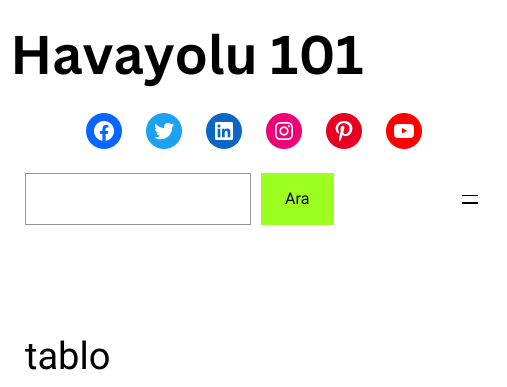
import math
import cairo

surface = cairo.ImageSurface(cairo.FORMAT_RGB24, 507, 387)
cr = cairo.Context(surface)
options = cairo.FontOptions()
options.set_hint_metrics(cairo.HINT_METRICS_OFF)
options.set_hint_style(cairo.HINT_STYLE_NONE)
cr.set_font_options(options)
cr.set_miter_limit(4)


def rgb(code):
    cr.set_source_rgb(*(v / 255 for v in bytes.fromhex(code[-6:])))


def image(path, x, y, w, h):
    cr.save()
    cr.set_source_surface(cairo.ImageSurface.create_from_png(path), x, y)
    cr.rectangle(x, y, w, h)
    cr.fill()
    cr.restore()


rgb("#ffffff")
cr.paint()
image("img/1.png", 15, 33, 348, 54)
rgb("#0866ff")
cr.arc(104, 131, 18, 0, 2 * math.pi)
cr.fill()
image("img/2.png", 94, 121, 20, 20)
rgb("#1da1f2")
cr.arc(164, 131, 18, 0, 2 * math.pi)
cr.fill()
image("img/3.png", 154, 123, 20, 17)
rgb("#0d66c2")
cr.arc(224, 131, 18, 0, 2 * math.pi)
cr.fill()
image("img/4.png", 215, 122, 18, 18)
rgb("#f00075")
cr.arc(284, 131, 18, 0, 2 * math.pi)
cr.fill()
image("img/5.png", 275, 122, 18, 18)
rgb("#e60122")
cr.arc(344, 131, 18, 0, 2 * math.pi)
cr.fill()
image("img/6.png", 335, 121, 18, 21)
rgb("#ff0000")
cr.arc(404, 131, 18, 0, 2 * math.pi)
cr.fill()
image("img/7.png", 394, 124, 20, 14)
cr.rectangle(25.5, 173.5, 225, 51)
rgb("#949494")
cr.set_line_width(1)
cr.stroke()
for x, y, w, h, color in [
    (261, 173, 73, 52, "#9dff20"),
    (462, 195, 16, 1, "#000000"),
    (462, 202, 16, 2, "#000000"),
]:
    rgb(color)
    cr.rectangle(x, y, w, h)
    cr.fill()
cr.select_font_face("Roboto")
cr.set_font_size(16)
cr.move_to(285, 204)
cr.show_text("Ara")
cr.set_font_size(38)
cr.move_to(25, 369)
cr.show_text("tablo")
surface.write_to_png("page.png")
